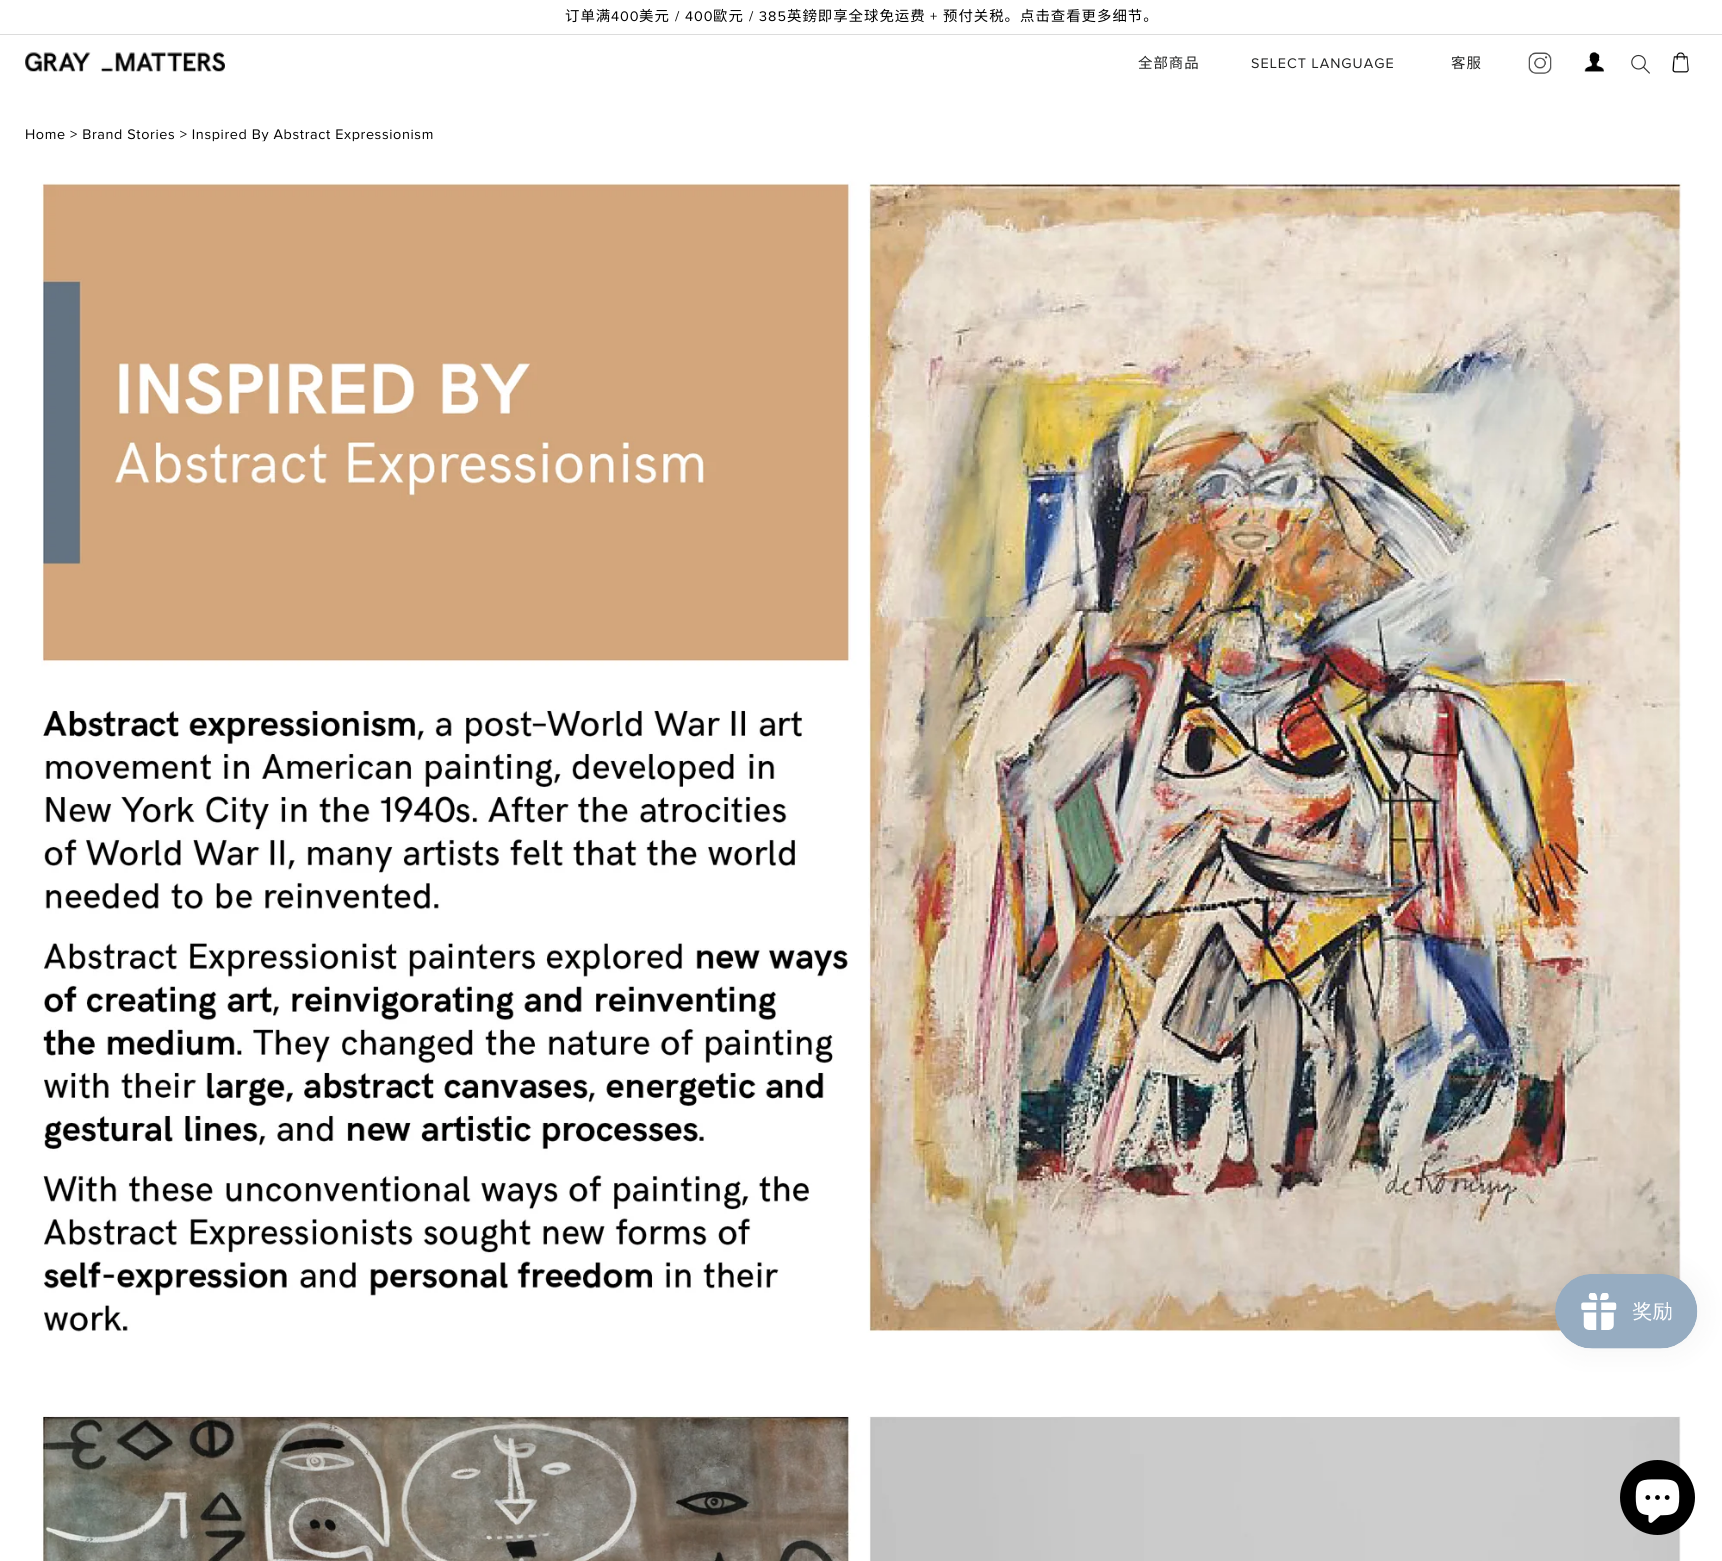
import math
import cairo

surface = cairo.ImageSurface(cairo.FORMAT_RGB24, 1722, 1561)
cr = cairo.Context(surface)
options = cairo.FontOptions()
options.set_hint_metrics(cairo.HINT_METRICS_OFF)
options.set_hint_style(cairo.HINT_STYLE_NONE)
cr.set_font_options(options)
cr.set_miter_limit(4)


def rgb(code):
    cr.set_source_rgb(*(v / 255 for v in bytes.fromhex(code[-6:])))


def tracked(x, y, s, letter, word):
    cr.move_to(x, y)
    for ch in s:
        cr.show_text(ch)
        cr.rel_move_to(letter + word * (ch == ' '), 0)


def rrect(x, y, w, h, r):
    cr.new_sub_path()
    for i, (u, v) in enumerate([(x + w - r, y + h - r), (x + r, y + h - r), (x + r, y + r), (x + w - r, y + r)]):
        cr.arc(u, v, r, i * math.pi / 2, (i + 1) * math.pi / 2)
    cr.close_path()


def soft_shadow(x, y, w, h, r, blur, alpha):
    cr.push_group_with_content(cairo.CONTENT_ALPHA)
    cr.set_operator(cairo.OPERATOR_SOURCE)
    for i in range(15, -16, -2):
        e = blur * i / 6
        if min(w, h) + 2 * e > 0:
            cr.set_source_rgba(0, 0, 0, alpha * math.erfc((i - 1) / 8.5) / 2)
            rrect(x - e, y - e, w + 2 * e, h + 2 * e, max(0, min(r + e + blur * .6, min(w, h) / 2 + e)))
            cr.fill()
    cr.mask(cr.pop_group())


def image(path, x, y, w, h):
    cr.save()
    cr.set_source_surface(cairo.ImageSurface.create_from_png(path), x, y)
    cr.rectangle(x, y, w, h)
    cr.fill()
    cr.restore()


rgb("#ffffff")
cr.paint()
rgb("#dcdcdc")
cr.rectangle(0, 34, 1722, 1)
cr.fill()
image("img/1.png", 25, 52, 200, 20)
image("img/2.png", 1528, 52, 24, 22)
image("img/3.png", 1584, 52, 20, 20)
image("img/4.png", 1631, 54, 19, 20)
image("img/5.png", 1672, 52, 17, 21)
image("img/7.png", 41, 1415, 1640, 146)
rgb("#000000")
cr.arc(1657.5, 1497.5, 37.5, 0, 2 * math.pi)
cr.fill()
image("img/9.png", 1635, 1479, 45, 44)
cr.select_font_face("Noto Sans CJK SC")
cr.set_font_size(14.4)
tracked(565, 21, "订单满", 1, 0)
cr.select_font_face("Proxima Nova")
tracked(611, 21, "400", 1, 0)
cr.select_font_face("Noto Sans CJK SC")
tracked(639, 21, "美元", 1, 0)
cr.select_font_face("Proxima Nova")
tracked(675, 21, "/ 400", 1, 0)
cr.select_font_face("Noto Sans CJK SC")
tracked(713, 21, "歐元", 1, 0)
cr.select_font_face("Proxima Nova")
tracked(749, 21, "/ 385", 1, 0)
cr.select_font_face("Noto Sans CJK SC")
tracked(787, 21, "英鎊即享全球免运费", 1, 0)
cr.select_font_face("Proxima Nova")
tracked(930, 21, "+", 1, 0)
cr.select_font_face("Noto Sans CJK SC")
tracked(943, 21, "预付关税。点击查看更多细节。", 1, 0)
rgb("#222323")
tracked(1138, 68, "全部商品", 1, 0)
cr.select_font_face("Proxima Nova")
tracked(1251, 68, "SELECT LANGUAGE", 1, 0)
cr.select_font_face("Noto Sans CJK SC")
tracked(1451, 68, "客服", 1, 0)
cr.select_font_face("Proxima Nova")
rgb("#000000")
tracked(25, 139, "Home > Brand Stories > Inspired By Abstract Expressionism", 0.62, 0)
image("img/6.png", 41, 141, 1641, 1192)
rgb("#000000")
soft_shadow(1555, 1274, 143, 75, 37.5, 15.5, 0.05)
image("img/8.png", 1555, 1274, 143, 75)
surface.write_to_png("page.png")
